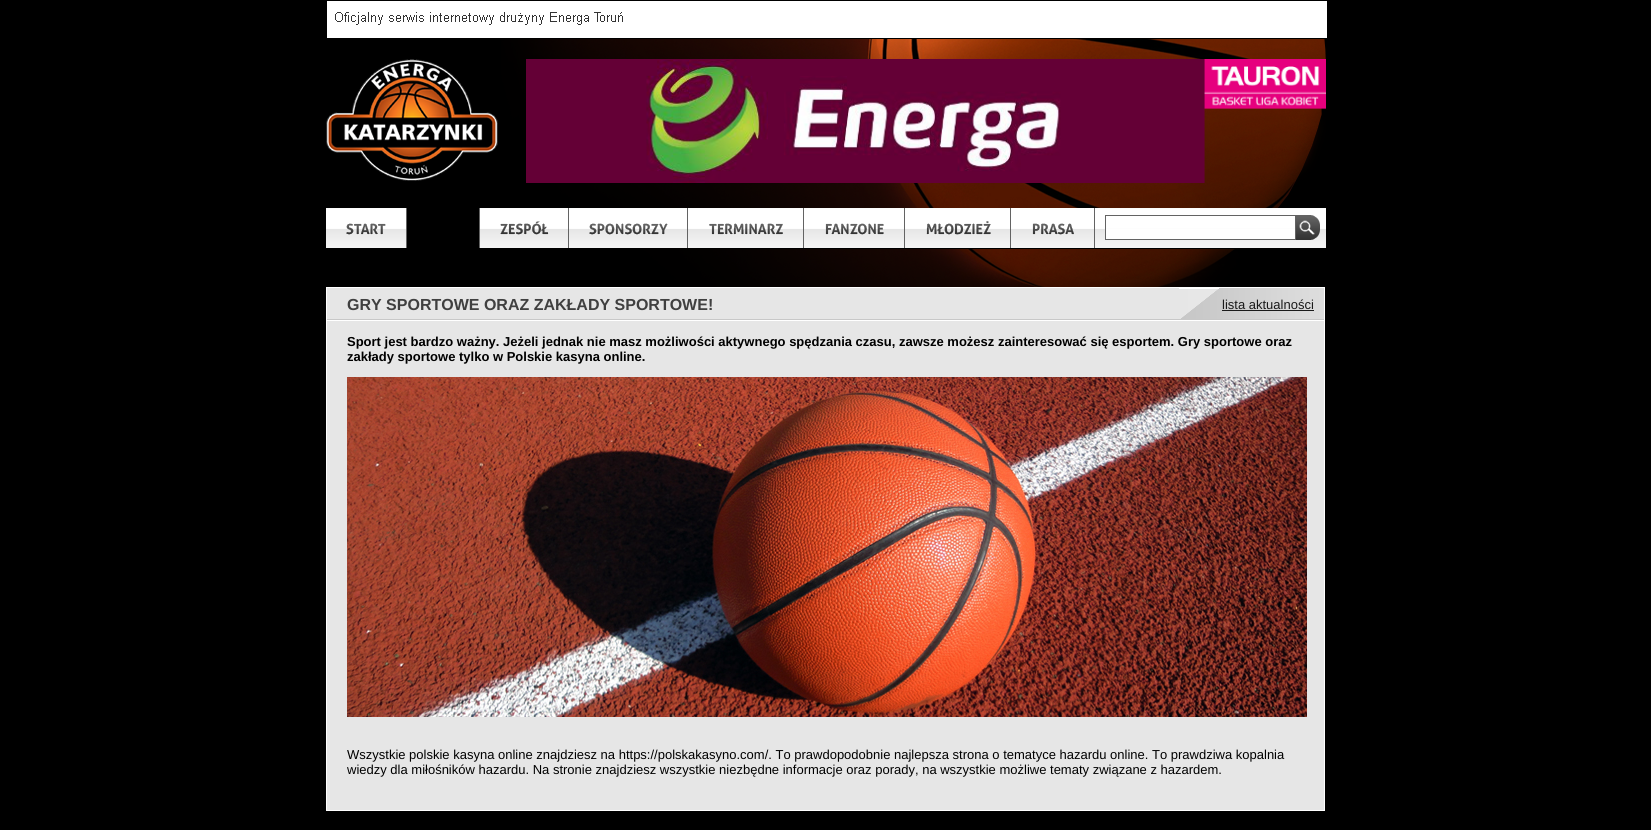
import math
import cairo

surface = cairo.ImageSurface(cairo.FORMAT_RGB24, 1651, 830)
cr = cairo.Context(surface)
options = cairo.FontOptions()
options.set_hint_metrics(cairo.HINT_METRICS_OFF)
options.set_hint_style(cairo.HINT_STYLE_NONE)
cr.set_font_options(options)
cr.set_miter_limit(4)


def rgb(code):
    cr.set_source_rgb(*(v / 255 for v in bytes.fromhex(code[-6:])))


def image(path, x, y, w, h):
    cr.save()
    cr.set_source_surface(cairo.ImageSurface.create_from_png(path), x, y)
    cr.rectangle(x, y, w, h)
    cr.fill()
    cr.restore()


rgb("#000000")
cr.paint()
image("img/1.png", 501, 39, 825, 301)
rgb("#ffffff")
cr.rectangle(327, 1, 1000, 37)
cr.fill()
image("img/2.png", 335, 12, 288, 13)
image("img/3.png", 326, 59, 172, 122)
image("img/4.png", 526, 59, 800, 124)
rgb("#000000")
cr.rectangle(696, 248, 540, 1)
cr.fill()
image("img/5.png", 326, 208, 80, 40)
rgb("#636363")
cr.rectangle(406, 208, 1, 40)
cr.fill()
cr.rectangle(479, 208, 1, 40)
cr.fill()
image("img/6.png", 480, 208, 88, 40)
cr.rectangle(568, 208, 1, 40)
cr.fill()
image("img/7.png", 569, 208, 118, 40)
cr.rectangle(687, 208, 1, 40)
cr.fill()
image("img/8.png", 688, 208, 115, 40)
cr.rectangle(803, 208, 1, 40)
cr.fill()
image("img/9.png", 804, 208, 100, 40)
cr.rectangle(904, 208, 1, 40)
cr.fill()
image("img/10.png", 905, 208, 105, 40)
cr.rectangle(1010, 208, 1, 40)
cr.fill()
image("img/11.png", 1011, 208, 83, 40)
cr.rectangle(1094, 208, 1, 40)
cr.fill()
image("img/12.png", 1095, 208, 231, 40)
rgb("#ffffff")
cr.rectangle(1106, 229, 189, 10)
cr.fill()
cr.rectangle(1105.5, 215.5, 190, 24)
rgb("#636363")
cr.set_line_width(1)
cr.stroke()
image("img/13.png", 1296, 215, 24, 25)
rgb("#e6e6e6")
cr.rectangle(326.5, 287.5, 998, 523)
cr.fill_preserve()
rgb("#ffffff")
cr.stroke()
rgb("#c8c8c8")
cr.rectangle(327, 319, 997, 1)
cr.fill()
image("img/14.png", 1179, 288, 145, 31)
rgb("#1a1a1a")
cr.rectangle(1222, 310, 92, 1)
cr.fill()
rgb("#ffffff")
cr.rectangle(327, 320, 997, 1)
cr.fill()
image("img/15.png", 347, 377, 960, 340)
cr.select_font_face("Liberation Sans", cairo.FONT_SLANT_NORMAL, cairo.FONT_WEIGHT_BOLD)
cr.set_font_size(16)
rgb("#404040")
cr.move_to(347, 310)
cr.show_text("GRY SPORTOWE ORAZ ZAKŁADY SPORTOWE!")
cr.select_font_face("Liberation Sans")
cr.set_font_size(13)
rgb("#1a1a1a")
cr.move_to(1222, 309)
cr.show_text("lista aktualności")
cr.select_font_face("Liberation Sans", cairo.FONT_SLANT_NORMAL, cairo.FONT_WEIGHT_BOLD)
rgb("#000000")
cr.move_to(347, 346)
cr.show_text("Sport jest bardzo ważny. Jeżeli jednak nie masz możliwości aktywnego spędzania czasu, zawsze możesz zainteresować się esportem. Gry sportowe oraz")
cr.move_to(347, 361)
cr.show_text("zakłady sportowe tylko w Polskie kasyna online.")
cr.select_font_face("Liberation Sans")
cr.move_to(347, 759)
cr.show_text("Wszystkie polskie kasyna online znajdziesz na https://polskakasyno.com/. To prawdopodobnie najlepsza strona o tematyce hazardu online. To prawdziwa kopalnia")
cr.move_to(347, 774)
cr.show_text("wiedzy dla miłośników hazardu. Na stronie znajdziesz wszystkie niezbędne informacje oraz porady, na wszystkie możliwe tematy związane z hazardem.")
surface.write_to_png("page.png")
